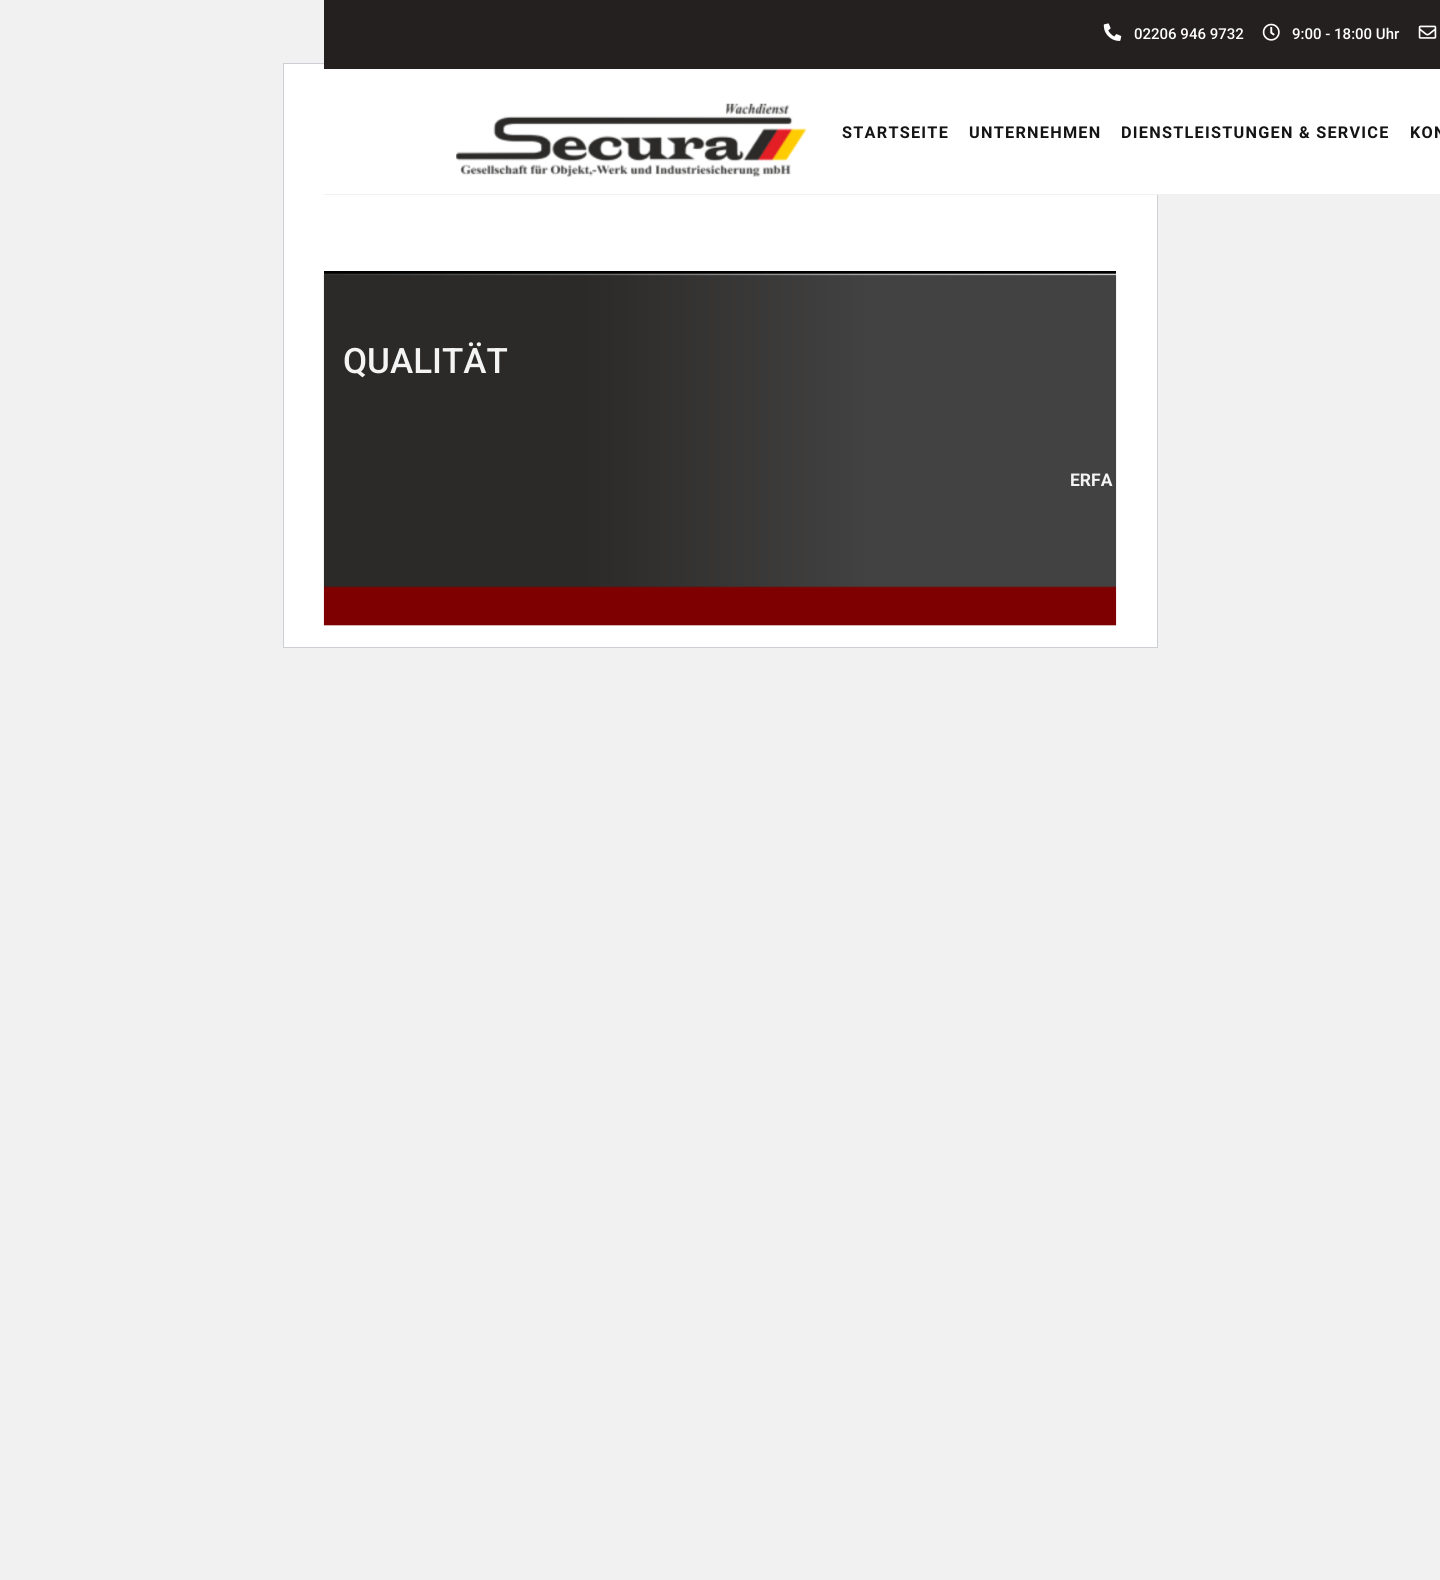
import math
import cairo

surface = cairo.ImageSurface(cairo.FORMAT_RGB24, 1440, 1580)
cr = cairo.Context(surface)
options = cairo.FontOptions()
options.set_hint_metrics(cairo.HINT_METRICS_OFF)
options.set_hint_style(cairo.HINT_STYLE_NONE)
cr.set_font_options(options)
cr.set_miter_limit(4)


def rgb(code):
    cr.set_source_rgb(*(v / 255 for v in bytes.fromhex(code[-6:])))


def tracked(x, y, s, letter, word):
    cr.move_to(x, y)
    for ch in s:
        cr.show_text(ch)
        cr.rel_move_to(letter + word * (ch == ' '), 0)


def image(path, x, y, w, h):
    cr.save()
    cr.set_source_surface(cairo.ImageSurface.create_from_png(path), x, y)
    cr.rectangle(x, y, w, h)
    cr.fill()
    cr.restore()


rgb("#f1f1f1")
cr.paint()
rgb("#ffffff")
cr.rectangle(283.5, 63.5, 874, 584)
cr.fill_preserve()
rgb("#ccd0d4")
cr.set_line_width(1)
cr.stroke()
rgb("#24201f")
cr.rectangle(324, 0, 1116, 69)
cr.fill()
image("img/1.png", 1103, 23, 19, 18)
image("img/2.png", 1262, 23, 18, 18)
image("img/3.png", 1418, 25, 19, 14)
rgb("#ffffff")
cr.rectangle(1157, 69, 283, 125)
cr.fill()
rgb("#f1f1f1")
cr.rectangle(324, 194, 834, 1)
cr.fill()
image("img/4.png", 456, 103, 351, 74)
rgb("#000000")
cr.rectangle(324, 271, 792, 3)
cr.fill()
image("img/5.png", 323, 273, 794, 353)
cr.select_font_face("Roboto Medium")
cr.set_font_size(15)
rgb("#ffffff")
cr.move_to(1134, 39)
cr.show_text("02206 946 9732")
cr.move_to(1292, 39)
cr.show_text("9:00 - 18:00 Uhr")
cr.select_font_face("Roboto", cairo.FONT_SLANT_NORMAL, cairo.FONT_WEIGHT_BOLD)
cr.set_font_size(16.25)
rgb("#141414")
for x, y, s in [
    (842, 138, "STARTSEITE"),
    (969, 138, "UNTERNEHMEN"),
    (1121, 138, "DIENSTLEISTUNGEN & SERVICE"),
    (1410, 138, "KON"),
]:
    tracked(x, y, s, 1.25, 0)
cr.select_font_face("Roboto Medium")
cr.set_font_size(35)
rgb("#f4f4f4")
cr.move_to(343, 373)
cr.show_text("QUALITÄT")
cr.select_font_face("Roboto", cairo.FONT_SLANT_NORMAL, cairo.FONT_WEIGHT_BOLD)
cr.set_font_size(17.5)
cr.move_to(1070, 486)
cr.show_text("ERFA")
surface.write_to_png("page.png")
